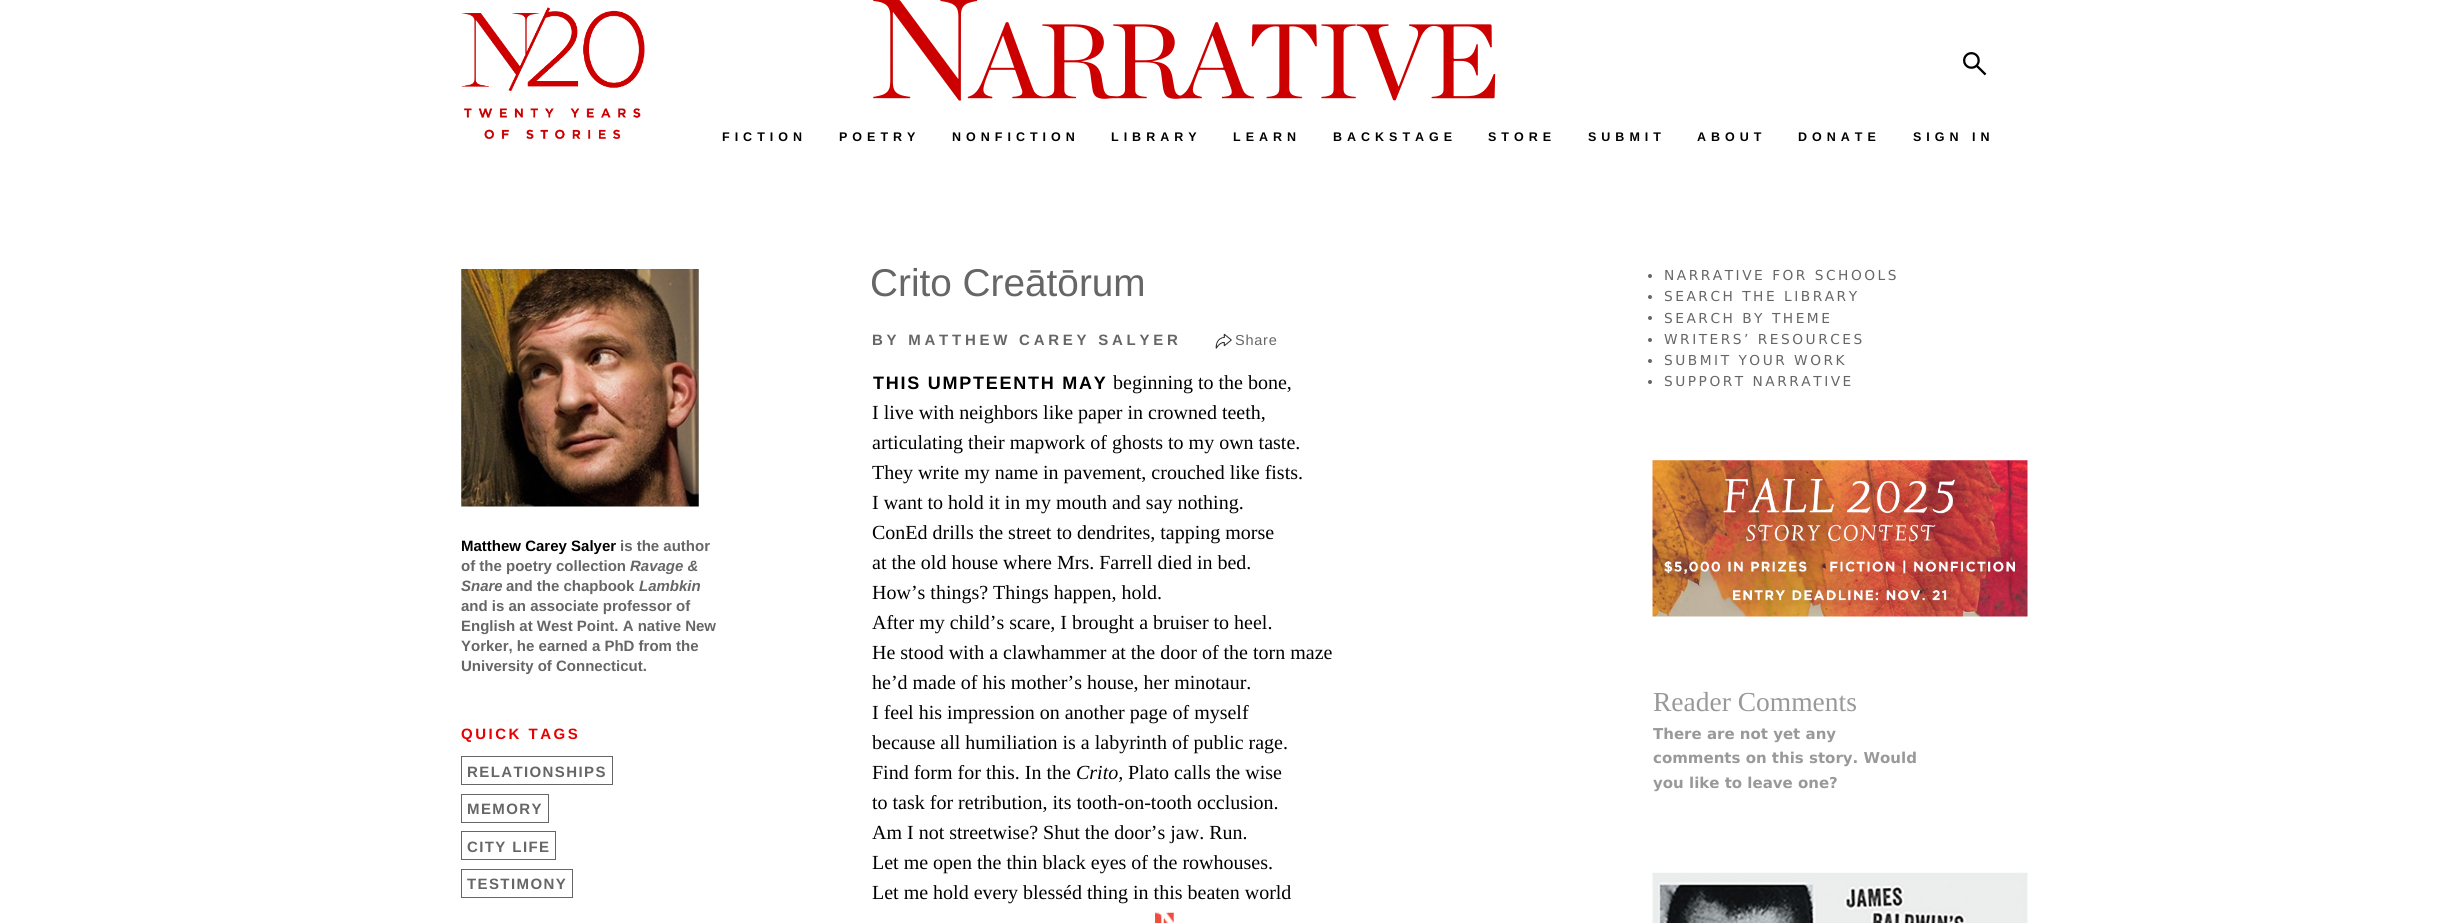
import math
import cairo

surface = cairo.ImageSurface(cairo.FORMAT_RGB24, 2456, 923)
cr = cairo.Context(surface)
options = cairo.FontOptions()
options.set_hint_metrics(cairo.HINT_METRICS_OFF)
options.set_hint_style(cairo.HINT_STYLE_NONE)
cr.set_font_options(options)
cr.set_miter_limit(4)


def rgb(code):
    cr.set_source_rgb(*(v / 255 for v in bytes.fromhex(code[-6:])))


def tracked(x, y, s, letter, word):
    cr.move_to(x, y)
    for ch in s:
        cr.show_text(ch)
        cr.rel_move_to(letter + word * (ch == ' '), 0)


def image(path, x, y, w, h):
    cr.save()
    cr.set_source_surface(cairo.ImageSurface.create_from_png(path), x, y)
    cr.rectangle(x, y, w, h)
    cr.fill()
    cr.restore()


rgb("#ffffff")
cr.paint()
image("img/1.png", 461, 7, 184, 132)
image("img/2.png", 873, 0, 623, 101)
image("img/3.png", 1963, 52, 24, 24)
image("img/4.png", 461, 269, 238, 238)
cr.rectangle(461.5, 756.5, 151, 28)
rgb("#666666")
cr.set_line_width(1)
cr.stroke()
cr.rectangle(461.5, 794.5, 87, 28)
cr.stroke()
cr.rectangle(461.5, 831.5, 94, 28)
cr.stroke()
cr.rectangle(461.5, 869.5, 111, 28)
cr.stroke()
image("img/5.png", 1215, 333, 17, 16)
image("img/6.png", 1155, 912, 19, 11)
cr.arc(1650, 276, 2, 0, 2 * math.pi)
cr.fill()
cr.arc(1650, 297, 2, 0, 2 * math.pi)
cr.fill()
cr.arc(1650, 318, 2, 0, 2 * math.pi)
cr.fill()
cr.arc(1650, 340, 2, 0, 2 * math.pi)
cr.fill()
cr.arc(1650, 361, 2, 0, 2 * math.pi)
cr.fill()
cr.arc(1650, 382, 2, 0, 2 * math.pi)
cr.fill()
image("img/7.png", 1652, 460, 376, 157)
image("img/8.png", 1652, 872, 376, 51)
cr.select_font_face("Liberation Sans", cairo.FONT_SLANT_NORMAL, cairo.FONT_WEIGHT_BOLD)
cr.set_font_size(12.5)
rgb("#000000")
for x, y, s in [
    (722, 141, "FICTION"),
    (839, 141, "POETRY"),
    (952, 141, "NONFICTION"),
    (1111, 141, "LIBRARY"),
    (1233, 141, "LEARN"),
    (1333, 141, "BACKSTAGE"),
    (1488, 141, "STORE"),
    (1588, 141, "SUBMIT"),
    (1697, 141, "ABOUT"),
    (1798, 141, "DONATE"),
    (1913, 141, "SIGN IN"),
]:
    tracked(x, y, s, 5, 0)
cr.set_font_size(15)
cr.move_to(461, 551)
cr.show_text("Matthew Carey Salyer")
rgb("#666666")
cr.move_to(620, 551)
cr.show_text("is the author")
cr.move_to(461, 571)
cr.show_text("of the poetry collection")
cr.select_font_face("Liberation Sans", cairo.FONT_SLANT_ITALIC, cairo.FONT_WEIGHT_BOLD)
cr.move_to(630, 571)
cr.show_text("Ravage &")
cr.move_to(461, 591)
cr.show_text("Snare")
cr.select_font_face("Liberation Sans", cairo.FONT_SLANT_NORMAL, cairo.FONT_WEIGHT_BOLD)
cr.move_to(506, 591)
cr.show_text("and the chapbook")
cr.select_font_face("Liberation Sans", cairo.FONT_SLANT_ITALIC, cairo.FONT_WEIGHT_BOLD)
cr.move_to(639, 591)
cr.show_text("Lambkin")
cr.select_font_face("Liberation Sans", cairo.FONT_SLANT_NORMAL, cairo.FONT_WEIGHT_BOLD)
for x, y, s in [
    (461, 611, "and is an associate professor of"),
    (461, 631, "English at West Point. A native New"),
    (461, 651, "Yorker, he earned a PhD from the"),
    (461, 671, "University of Connecticut."),
]:
    cr.move_to(x, y)
    cr.show_text(s)
rgb("#e60000")
tracked(461, 739, "QUICK TAGS", 2.5, 0)
rgb("#666666")
for x, y, s in [
    (467, 777, "RELATIONSHIPS"),
    (467, 814, "MEMORY"),
    (467, 852, "CITY LIFE"),
    (467, 889, "TESTIMONY"),
]:
    tracked(x, y, s, 1.4, 0)
cr.select_font_face("Liberation Sans")
cr.set_font_size(38.75)
cr.move_to(870, 296)
cr.show_text("Crito Creātōrum")
cr.select_font_face("Liberation Sans", cairo.FONT_SLANT_NORMAL, cairo.FONT_WEIGHT_BOLD)
cr.set_font_size(15)
tracked(872, 345, "BY MATTHEW CAREY SALYER", 3.75, 0)
cr.select_font_face("Liberation Sans")
cr.set_font_size(14.5)
tracked(1235, 345, "Share", 0.75, 0)
cr.select_font_face("Liberation Sans", cairo.FONT_SLANT_NORMAL, cairo.FONT_WEIGHT_BOLD)
cr.set_font_size(18)
rgb("#000000")
tracked(873, 389, "THIS UMPTEENTH MAY", 1.75, 0)
cr.select_font_face("Liberation Serif")
cr.set_font_size(20)
for x, y, s in [
    (1113, 389, "beginning to the bone,"),
    (872, 419, "I live with neighbors like paper in crowned teeth,"),
    (872, 449, "articulating their mapwork of ghosts to my own taste."),
    (872, 479, "They write my name in pavement, crouched like fists."),
    (872, 509, "I want to hold it in my mouth and say nothing."),
    (872, 539, "ConEd drills the street to dendrites, tapping morse"),
    (872, 569, "at the old house where Mrs. Farrell died in bed."),
    (872, 599, "How’s things? Things happen, hold."),
    (872, 629, "After my child’s scare, I brought a bruiser to heel."),
    (872, 659, "He stood with a clawhammer at the door of the torn maze"),
    (872, 689, "he’d made of his mother’s house, her minotaur."),
    (872, 719, "I feel his impression on another page of myself"),
    (872, 749, "because all humiliation is a labyrinth of public rage."),
    (872, 779, "Find form for this. In the"),
]:
    cr.move_to(x, y)
    cr.show_text(s)
cr.select_font_face("Liberation Serif", cairo.FONT_SLANT_ITALIC)
cr.move_to(1076, 779)
cr.show_text("Crito,")
cr.select_font_face("Liberation Serif")
for x, y, s in [
    (1128, 779, "Plato calls the wise"),
    (872, 809, "to task for retribution, its tooth-on-tooth occlusion."),
    (872, 839, "Am I not streetwise? Shut the door’s jaw. Run."),
    (872, 869, "Let me open the thin black eyes of the rowhouses."),
    (872, 899, "Let me hold every blesséd thing in this beaten world"),
]:
    cr.move_to(x, y)
    cr.show_text(s)
cr.select_font_face("DejaVu Sans")
cr.set_font_size(13.75)
rgb("#666666")
for x, y, s in [
    (1664, 280, "NARRATIVE FOR SCHOOLS"),
    (1664, 301, "SEARCH THE LIBRARY"),
    (1664, 323, "SEARCH BY THEME"),
    (1664, 344, "WRITERS’ RESOURCES"),
    (1664, 365, "SUBMIT YOUR WORK"),
    (1664, 386, "SUPPORT NARRATIVE"),
]:
    tracked(x, y, s, 2.5, 0)
cr.select_font_face("Liberation Serif")
cr.set_font_size(27.5)
rgb("#999999")
cr.move_to(1653, 711)
cr.show_text("Reader Comments")
cr.select_font_face("DejaVu Sans", cairo.FONT_SLANT_NORMAL, cairo.FONT_WEIGHT_BOLD)
cr.set_font_size(15)
for x, y, s in [
    (1653, 739, "There are not yet any"),
    (1653, 763, "comments on this story. Would"),
    (1653, 788, "you like to leave one?"),
]:
    cr.move_to(x, y)
    cr.show_text(s)
surface.write_to_png("page.png")
